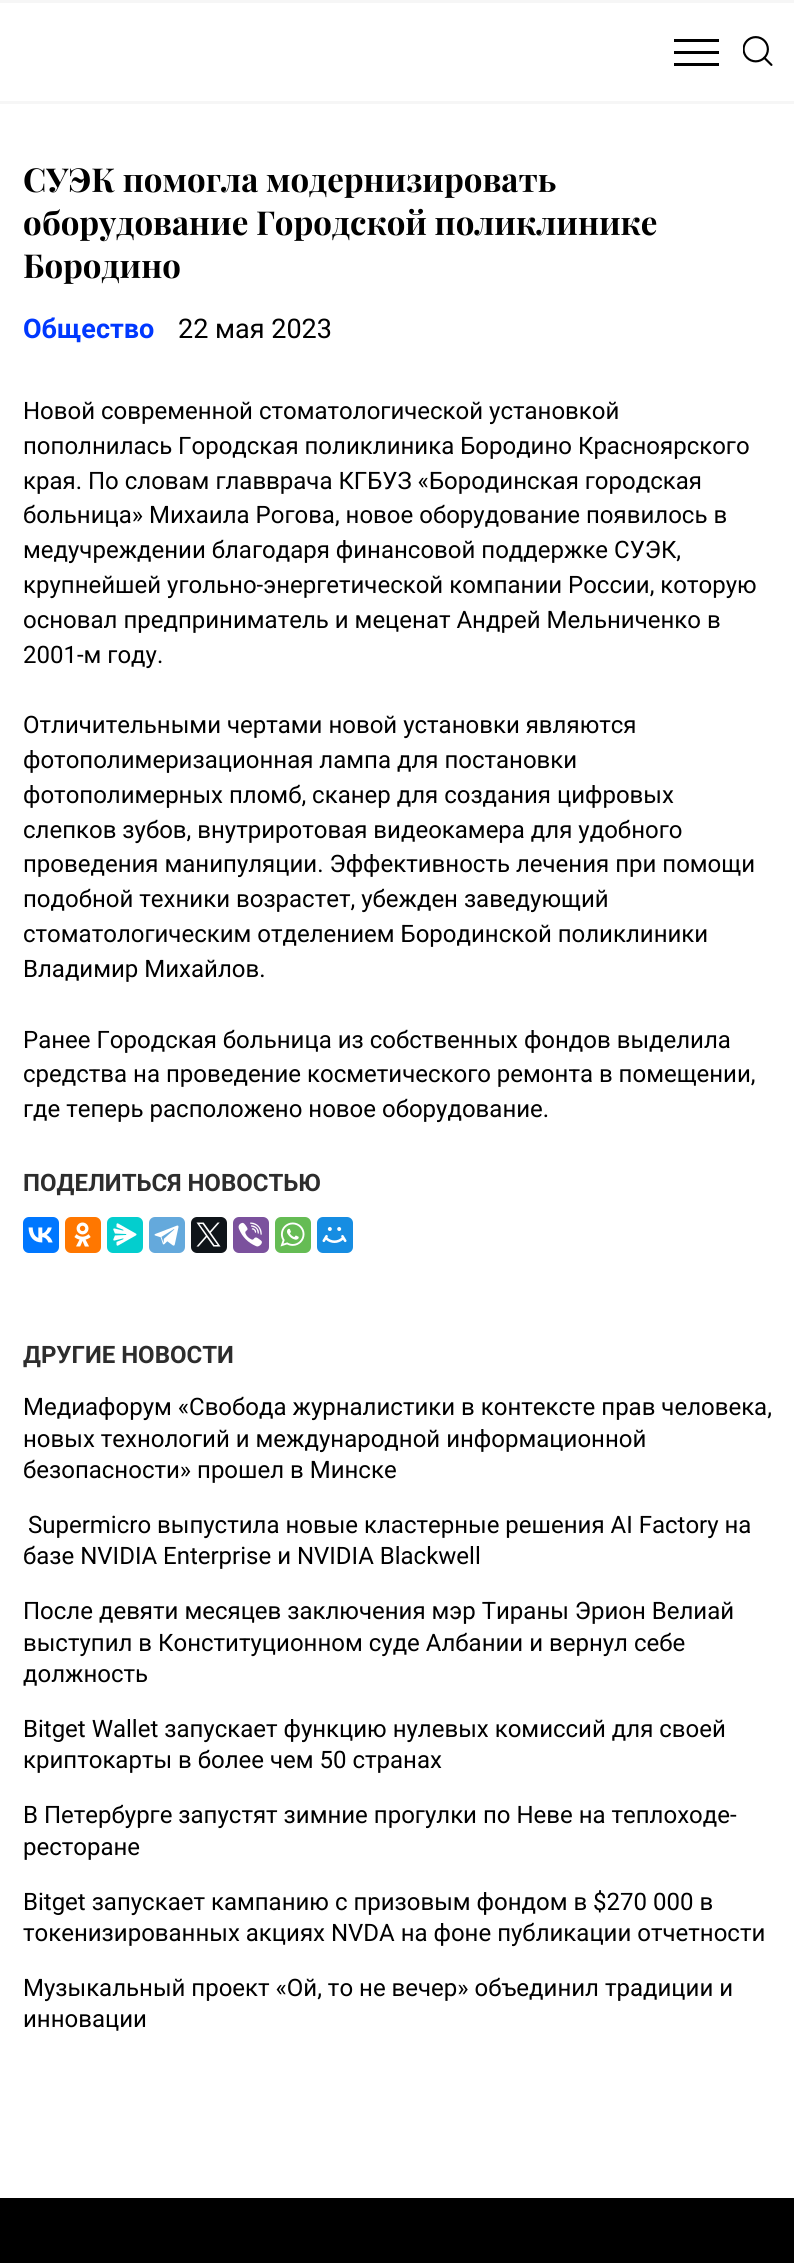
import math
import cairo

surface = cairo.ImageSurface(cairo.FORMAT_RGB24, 794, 2263)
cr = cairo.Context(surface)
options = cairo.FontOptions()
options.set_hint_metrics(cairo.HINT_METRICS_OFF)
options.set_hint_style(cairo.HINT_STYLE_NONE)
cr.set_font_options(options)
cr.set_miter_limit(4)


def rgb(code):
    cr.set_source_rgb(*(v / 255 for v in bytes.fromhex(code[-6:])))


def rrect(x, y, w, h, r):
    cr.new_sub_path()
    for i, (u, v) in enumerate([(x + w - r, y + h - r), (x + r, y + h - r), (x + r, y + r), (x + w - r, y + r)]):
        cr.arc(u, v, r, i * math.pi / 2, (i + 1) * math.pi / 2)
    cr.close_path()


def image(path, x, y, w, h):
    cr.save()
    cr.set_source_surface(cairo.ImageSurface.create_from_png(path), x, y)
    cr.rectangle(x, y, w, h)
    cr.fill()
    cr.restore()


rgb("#ffffff")
cr.paint()
for x, y, w, h, color in [
    (0, 0, 794, 3, "#f6f6f6"),
    (0, 101, 794, 3, "#f6f6f6"),
    (674, 51, 45, 3, "#000000"),
    (674, 39, 45, 3, "#000000"),
    (674, 63, 45, 3, "#000000"),
]:
    rgb(color)
    cr.rectangle(x, y, w, h)
    cr.fill()
image("img/1.png", 743, 36, 30, 30)
rgb("#0077ff")
rrect(23, 1217, 36, 36, 6)
cr.fill()
image("img/2.png", 28, 1227, 25, 16)
rgb("#ff7700")
rrect(65, 1217, 36, 36, 6)
cr.fill()
image("img/3.png", 74, 1222, 17, 25)
rgb("#03cece")
rrect(107, 1217, 36, 36, 6)
cr.fill()
image("img/4.png", 113, 1223, 24, 23)
rgb("#64a9dc")
rrect(149, 1217, 36, 36, 6)
cr.fill()
image("img/5.png", 154, 1225, 25, 21)
rgb("#0f1419")
rrect(191, 1217, 36, 36, 6)
cr.fill()
image("img/6.png", 196, 1222, 25, 25)
rgb("#7b519d")
rrect(233, 1217, 36, 36, 6)
cr.fill()
image("img/7.png", 238, 1222, 24, 25)
rgb("#65bc54")
rrect(275, 1217, 36, 36, 6)
cr.fill()
image("img/8.png", 280, 1222, 25, 25)
rgb("#168de2")
rrect(317, 1217, 36, 36, 6)
cr.fill()
image("img/9.png", 322, 1227, 25, 16)
rgb("#000000")
cr.rectangle(0, 2198, 794, 65)
cr.fill()
cr.select_font_face("Playfair Display", cairo.FONT_SLANT_NORMAL, cairo.FONT_WEIGHT_BOLD)
cr.set_font_size(33)
for x, y, s in [
    (23, 192, "СУЭК помогла модернизировать"),
    (23, 235, "оборудование Городской поликлинике"),
    (23, 278, "Бородино"),
]:
    cr.move_to(x, y)
    cr.show_text(s)
cr.select_font_face("Roboto", cairo.FONT_SLANT_NORMAL, cairo.FONT_WEIGHT_BOLD)
cr.set_font_size(27)
rgb("#0038ff")
cr.move_to(23, 338)
cr.show_text("Общество")
cr.select_font_face("Roboto")
rgb("#000000")
cr.move_to(178, 338)
cr.show_text("22 мая 2023")
cr.set_font_size(24)
for x, y, s in [
    (23, 419, "Новой современной стоматологической установкой"),
    (23, 454, "пополнилась Городская поликлиника Бородино Красноярского"),
    (23, 489, "края. По словам главврача КГБУЗ «Бородинская городская"),
    (23, 523, "больница» Михаила Рогова, новое оборудование появилось в"),
    (23, 558, "медучреждении благодаря финансовой поддержке СУЭК,"),
    (23, 593, "крупнейшей угольно-энергетической компании России, которую"),
    (23, 628, "основал предприниматель и меценат Андрей Мельниченко в"),
    (23, 663, "2001-м году."),
    (23, 733, "Отличительными чертами новой установки являются"),
    (23, 768, "фотополимеризационная лампа для постановки"),
    (23, 803, "фотополимерных пломб, сканер для создания цифровых"),
    (23, 838, "слепков зубов, внутриротовая видеокамера для удобного"),
    (23, 872, "проведения манипуляции. Эффективность лечения при помощи"),
    (23, 907, "подобной техники возрастет, убежден заведующий"),
    (23, 942, "стоматологическим отделением Бородинской поликлиники"),
    (23, 977, "Владимир Михайлов."),
    (23, 1048, "Ранее Городская больница из собственных фондов выделила"),
    (23, 1082, "средства на проведение косметического ремонта в помещении,"),
    (23, 1117, "где теперь расположено новое оборудование."),
]:
    cr.move_to(x, y)
    cr.show_text(s)
cr.select_font_face("Roboto", cairo.FONT_SLANT_NORMAL, cairo.FONT_WEIGHT_BOLD)
rgb("#2d2d2d")
cr.move_to(23, 1191)
cr.show_text("ПОДЕЛИТЬСЯ НОВОСТЬЮ")
cr.move_to(23, 1363)
cr.show_text("ДРУГИЕ НОВОСТИ")
cr.select_font_face("Roboto")
rgb("#000000")
for x, y, s in [
    (23, 1415, "Медиафорум «Свобода журналистики в контексте прав человека,"),
    (23, 1447, "новых технологий и международной информационной"),
    (23, 1478, "безопасности» прошел в Минске"),
    (28, 1533, "Supermicro выпустила новые кластерные решения AI Factory на"),
    (23, 1564, "базе NVIDIA Enterprise и NVIDIA Blackwell"),
    (23, 1619, "После девяти месяцев заключения мэр Тираны Эрион Велиай"),
    (23, 1651, "выступил в Конституционном суде Албании и вернул себе"),
    (23, 1682, "должность"),
    (23, 1737, "Bitget Wallet запускает функцию нулевых комиссий для своей"),
    (23, 1768, "криптокарты в более чем 50 странах"),
    (23, 1823, "В Петербурге запустят зимние прогулки по Неве на теплоходе-"),
    (23, 1855, "ресторане"),
    (23, 1910, "Bitget запускает кампанию с призовым фондом в $270 000 в"),
    (23, 1941, "токенизированных акциях NVDA на фоне публикации отчетности"),
    (23, 1996, "Музыкальный проект «Ой, то не вечер» объединил традиции и"),
    (23, 2027, "инновации"),
]:
    cr.move_to(x, y)
    cr.show_text(s)
surface.write_to_png("page.png")
